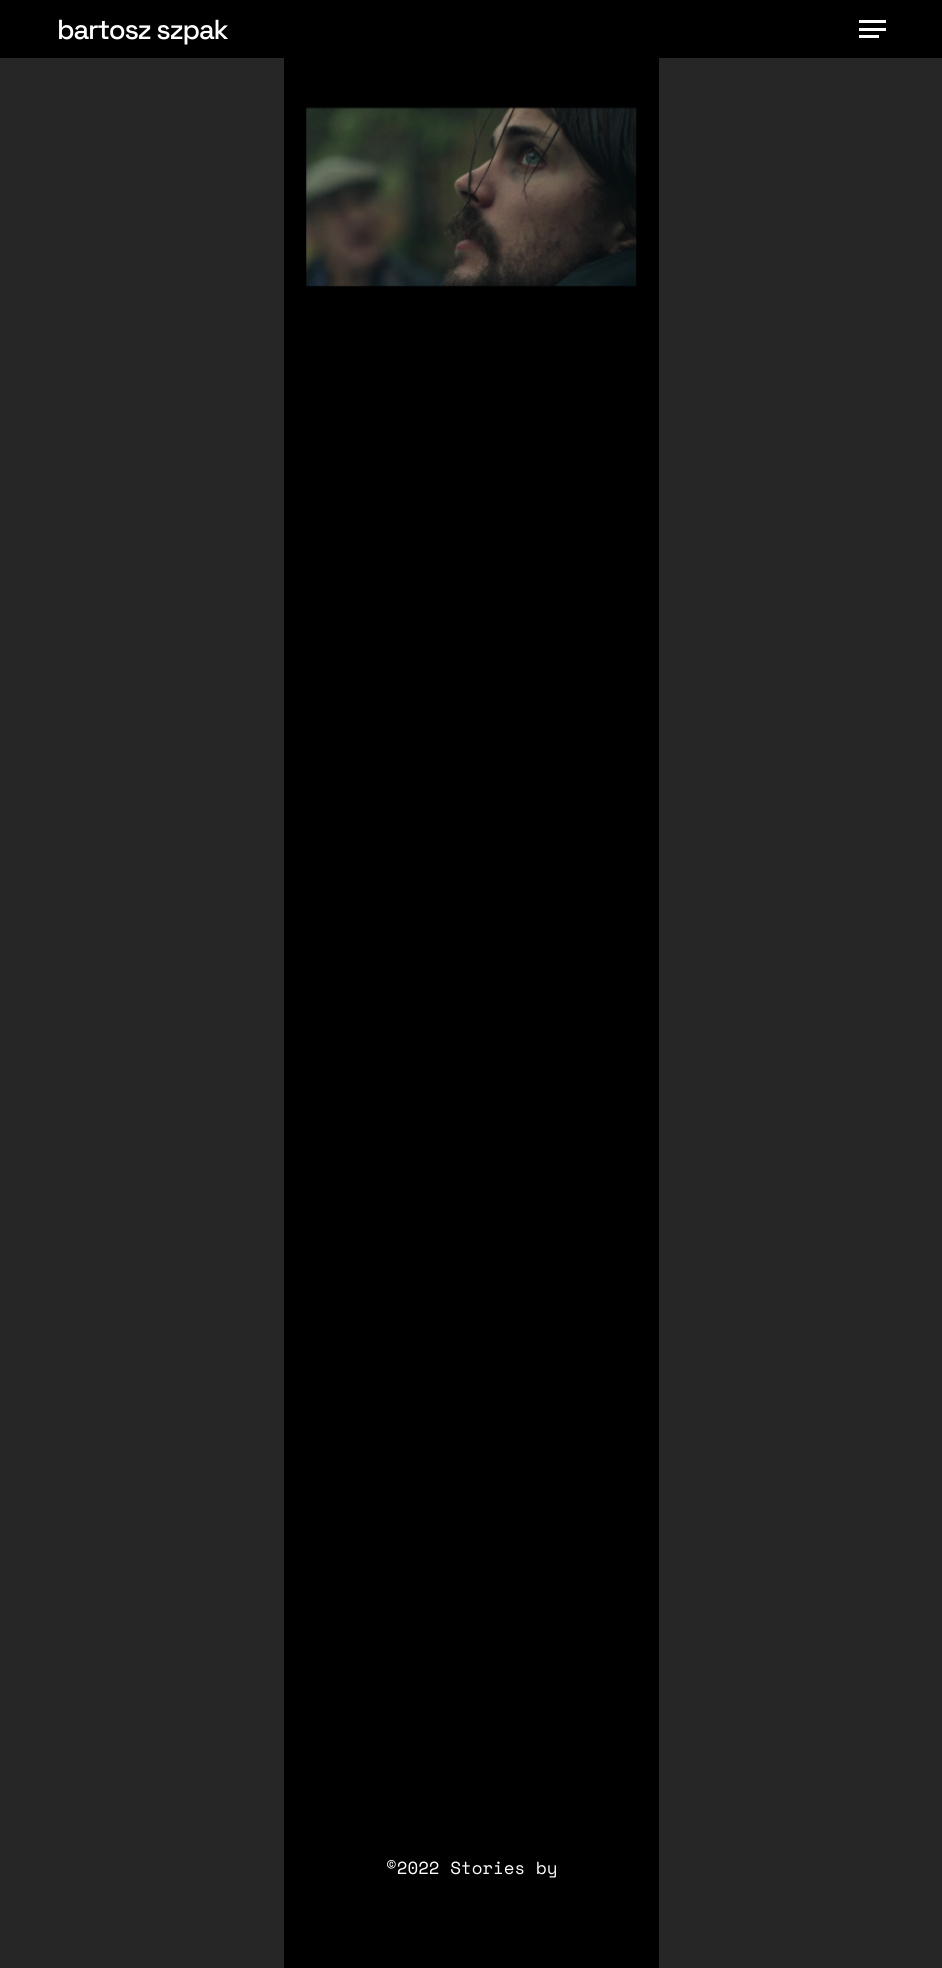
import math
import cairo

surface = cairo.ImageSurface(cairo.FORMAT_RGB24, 942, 1968)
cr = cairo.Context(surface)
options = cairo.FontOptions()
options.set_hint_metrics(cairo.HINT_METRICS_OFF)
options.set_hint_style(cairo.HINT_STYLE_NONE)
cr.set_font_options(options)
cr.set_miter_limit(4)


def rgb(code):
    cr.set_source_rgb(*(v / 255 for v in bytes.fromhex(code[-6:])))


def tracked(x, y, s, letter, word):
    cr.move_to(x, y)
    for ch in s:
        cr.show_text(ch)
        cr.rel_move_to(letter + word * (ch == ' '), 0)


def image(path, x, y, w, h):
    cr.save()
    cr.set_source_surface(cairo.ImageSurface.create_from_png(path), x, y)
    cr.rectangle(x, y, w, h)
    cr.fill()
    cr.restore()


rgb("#262626")
cr.paint()
for x, y, w, h, color in [
    (284, 58, 375, 1910, "#000000"),
    (0, 0, 942, 58, "#000000"),
    (859, 20, 27, 3, "#ffffff"),
    (859, 35, 20, 3, "#ffffff"),
    (859, 28, 27, 3, "#ffffff"),
]:
    rgb(color)
    cr.rectangle(x, y, w, h)
    cr.fill()
image("img/1.png", 306, 107, 331, 180)
cr.select_font_face("Space Grotesk Medium")
cr.set_font_size(27.5)
tracked(57, 39, "bartosz szpak", -1.25, 0)
cr.select_font_face("Space Mono")
cr.set_font_size(17.5)
cr.move_to(386, 1874)
cr.show_text("©2022 Stories by")
surface.write_to_png("page.png")
